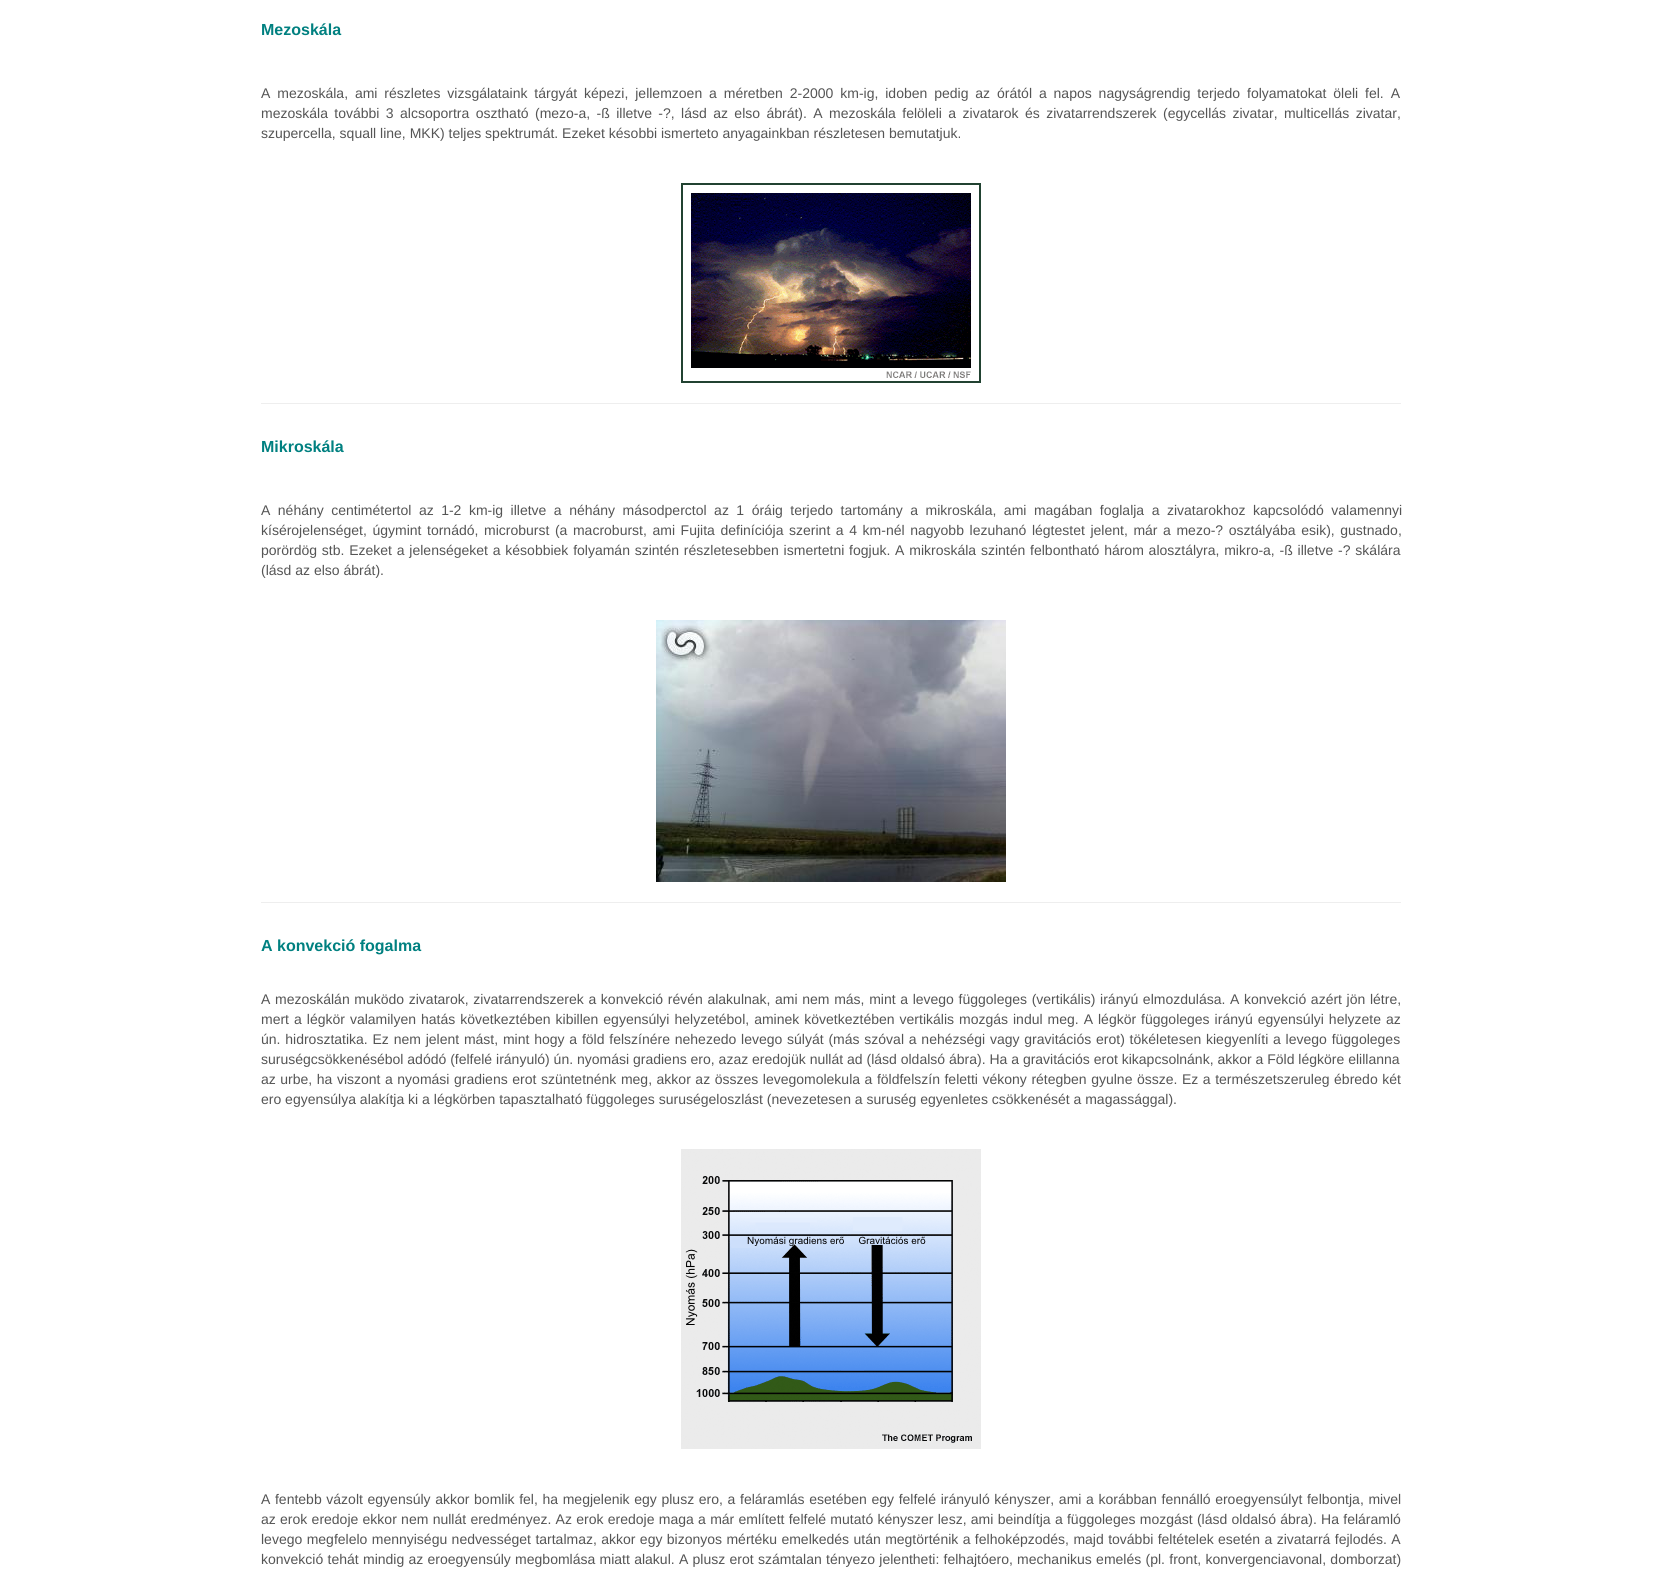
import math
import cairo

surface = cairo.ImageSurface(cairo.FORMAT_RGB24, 1661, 1579)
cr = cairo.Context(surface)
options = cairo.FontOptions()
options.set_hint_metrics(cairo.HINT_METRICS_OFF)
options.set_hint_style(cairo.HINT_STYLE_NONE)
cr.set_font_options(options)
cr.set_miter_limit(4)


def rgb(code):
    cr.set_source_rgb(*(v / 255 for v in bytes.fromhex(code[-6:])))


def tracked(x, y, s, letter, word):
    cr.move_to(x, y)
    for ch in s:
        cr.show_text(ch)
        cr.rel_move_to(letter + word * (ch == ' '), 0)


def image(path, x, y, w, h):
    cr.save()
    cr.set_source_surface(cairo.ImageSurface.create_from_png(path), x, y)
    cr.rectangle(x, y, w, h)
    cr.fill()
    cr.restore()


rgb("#ffffff")
cr.paint()
image("img/1.png", 681, 183, 300, 200)
rgb("#eeeeee")
cr.rectangle(261, 403, 1140, 1)
cr.fill()
image("img/2.png", 656, 620, 350, 262)
cr.rectangle(261, 902, 1140, 1)
cr.fill()
image("img/3.png", 681, 1149, 300, 300)
cr.select_font_face("Liberation Sans", cairo.FONT_SLANT_NORMAL, cairo.FONT_WEIGHT_BOLD)
cr.set_font_size(16)
rgb("#008080")
cr.move_to(261, 35)
cr.show_text("Mezoskála")
cr.select_font_face("Liberation Sans")
cr.set_font_size(14)
rgb("#555555")
tracked(261, 98, "A mezoskála, ami részletes vizsgálataink tárgyát képezi, jellemzoen a méretben 2-2000 km-ig, idoben pedig az órától a napos nagyságrendig terjedo folyamatokat öleli fel. A", 0, 3)
tracked(261, 118, "mezoskála további 3 alcsoportra osztható (mezo-a, -ß illetve -?, lásd az elso ábrát). A mezoskála felöleli a zivatarok és zivatarrendszerek (egycellás zivatar, multicellás zivatar,", 0, 2.5)
cr.move_to(261, 138)
cr.show_text("szupercella, squall line, MKK) teljes spektrumát. Ezeket késobbi ismerteto anyagainkban részletesen bemutatjuk.")
cr.select_font_face("Liberation Sans", cairo.FONT_SLANT_NORMAL, cairo.FONT_WEIGHT_BOLD)
cr.set_font_size(16)
rgb("#008080")
cr.move_to(261, 452)
cr.show_text("Mikroskála")
cr.select_font_face("Liberation Sans")
cr.set_font_size(14)
rgb("#555555")
tracked(261, 515, "A néhány centimétertol az 1-2 km-ig illetve a néhány másodperctol az 1 óráig terjedo tartomány a mikroskála, ami magában foglalja a zivatarokhoz kapcsolódó valamennyi", 0, 3.6)
tracked(261, 535, "kísérojelenséget, úgymint tornádó, microburst (a macroburst, ami Fujita definíciója szerint a 4 km-nél nagyobb lezuhanó légtestet jelent, már a mezo-? osztályába esik), gustnado,", 0, 1.7)
tracked(261, 555, "porördög stb. Ezeket a jelenségeket a késobbiek folyamán szintén részletesebben ismertetni fogjuk. A mikroskála szintén felbontható három alosztályra, mikro-a, -ß illetve -? skálára", 0, 0.9)
cr.move_to(261, 575)
cr.show_text("(lásd az elso ábrát).")
cr.select_font_face("Liberation Sans", cairo.FONT_SLANT_NORMAL, cairo.FONT_WEIGHT_BOLD)
cr.set_font_size(16)
rgb("#008080")
cr.move_to(261, 951)
cr.show_text("A konvekció fogalma")
cr.select_font_face("Liberation Sans")
cr.set_font_size(14)
rgb("#555555")
tracked(261, 1004, "A mezoskálán muködo zivatarok, zivatarrendszerek a konvekció révén alakulnak, ami nem más, mint a levego függoleges (vertikális) irányú elmozdulása. A konvekció azért jön létre,", 0, 0.75)
tracked(261, 1024, "mert a légkör valamilyen hatás következtében kibillen egyensúlyi helyzetébol, aminek következtében vertikális mozgás indul meg. A légkör függoleges irányú egyensúlyi helyzete az", 0, 1.1)
tracked(261, 1044, "ún. hidrosztatika. Ez nem jelent mást, mint hogy a föld felszínére nehezedo levego súlyát (más szóval a nehézségi vagy gravitációs erot) tökéletesen kiegyenlíti a levego függoleges", 0, 0.9)
cr.move_to(261, 1064)
cr.show_text("suruségcsökkenésébol adódó (felfelé irányuló) ún. nyomási gradiens ero, azaz eredojük nullát ad (lásd oldalsó ábra). Ha a gravitációs erot kikapcsolnánk, akkor a Föld légköre elillanna")
tracked(261, 1084, "az urbe, ha viszont a nyomási gradiens erot szüntetnénk meg, akkor az összes levegomolekula a földfelszín feletti vékony rétegben gyulne össze. Ez a természetszeruleg ébredo két", 0, 0.65)
cr.move_to(261, 1104)
cr.show_text("ero egyensúlya alakítja ki a légkörben tapasztalható függoleges suruségeloszlást (nevezetesen a suruség egyenletes csökkenését a magassággal).")
tracked(261, 1504, "A fentebb vázolt egyensúly akkor bomlik fel, ha megjelenik egy plusz ero, a feláramlás esetében egy felfelé irányuló kényszer, ami a korábban fennálló eroegyensúlyt felbontja, mivel", 0, 0.75)
tracked(261, 1524, "az erok eredoje ekkor nem nullát eredményez. Az erok eredoje maga a már említett felfelé mutató kényszer lesz, ami beindítja a függoleges mozgást (lásd oldalsó ábra). Ha feláramló", 0, 0.4)
tracked(261, 1544, "levego megfelelo mennyiségu nedvességet tartalmaz, akkor egy bizonyos mértéku emelkedés után megtörténik a felhoképzodés, majd további feltételek esetén a zivatarrá fejlodés. A", 0, 0.5)
tracked(261, 1564, "konvekció tehát mindig az eroegyensúly megbomlása miatt alakul. A plusz erot számtalan tényezo jelentheti: felhajtóero, mechanikus emelés (pl. front, konvergenciavonal, domborzat)", 0, 0.4)
surface.write_to_png("page.png")
